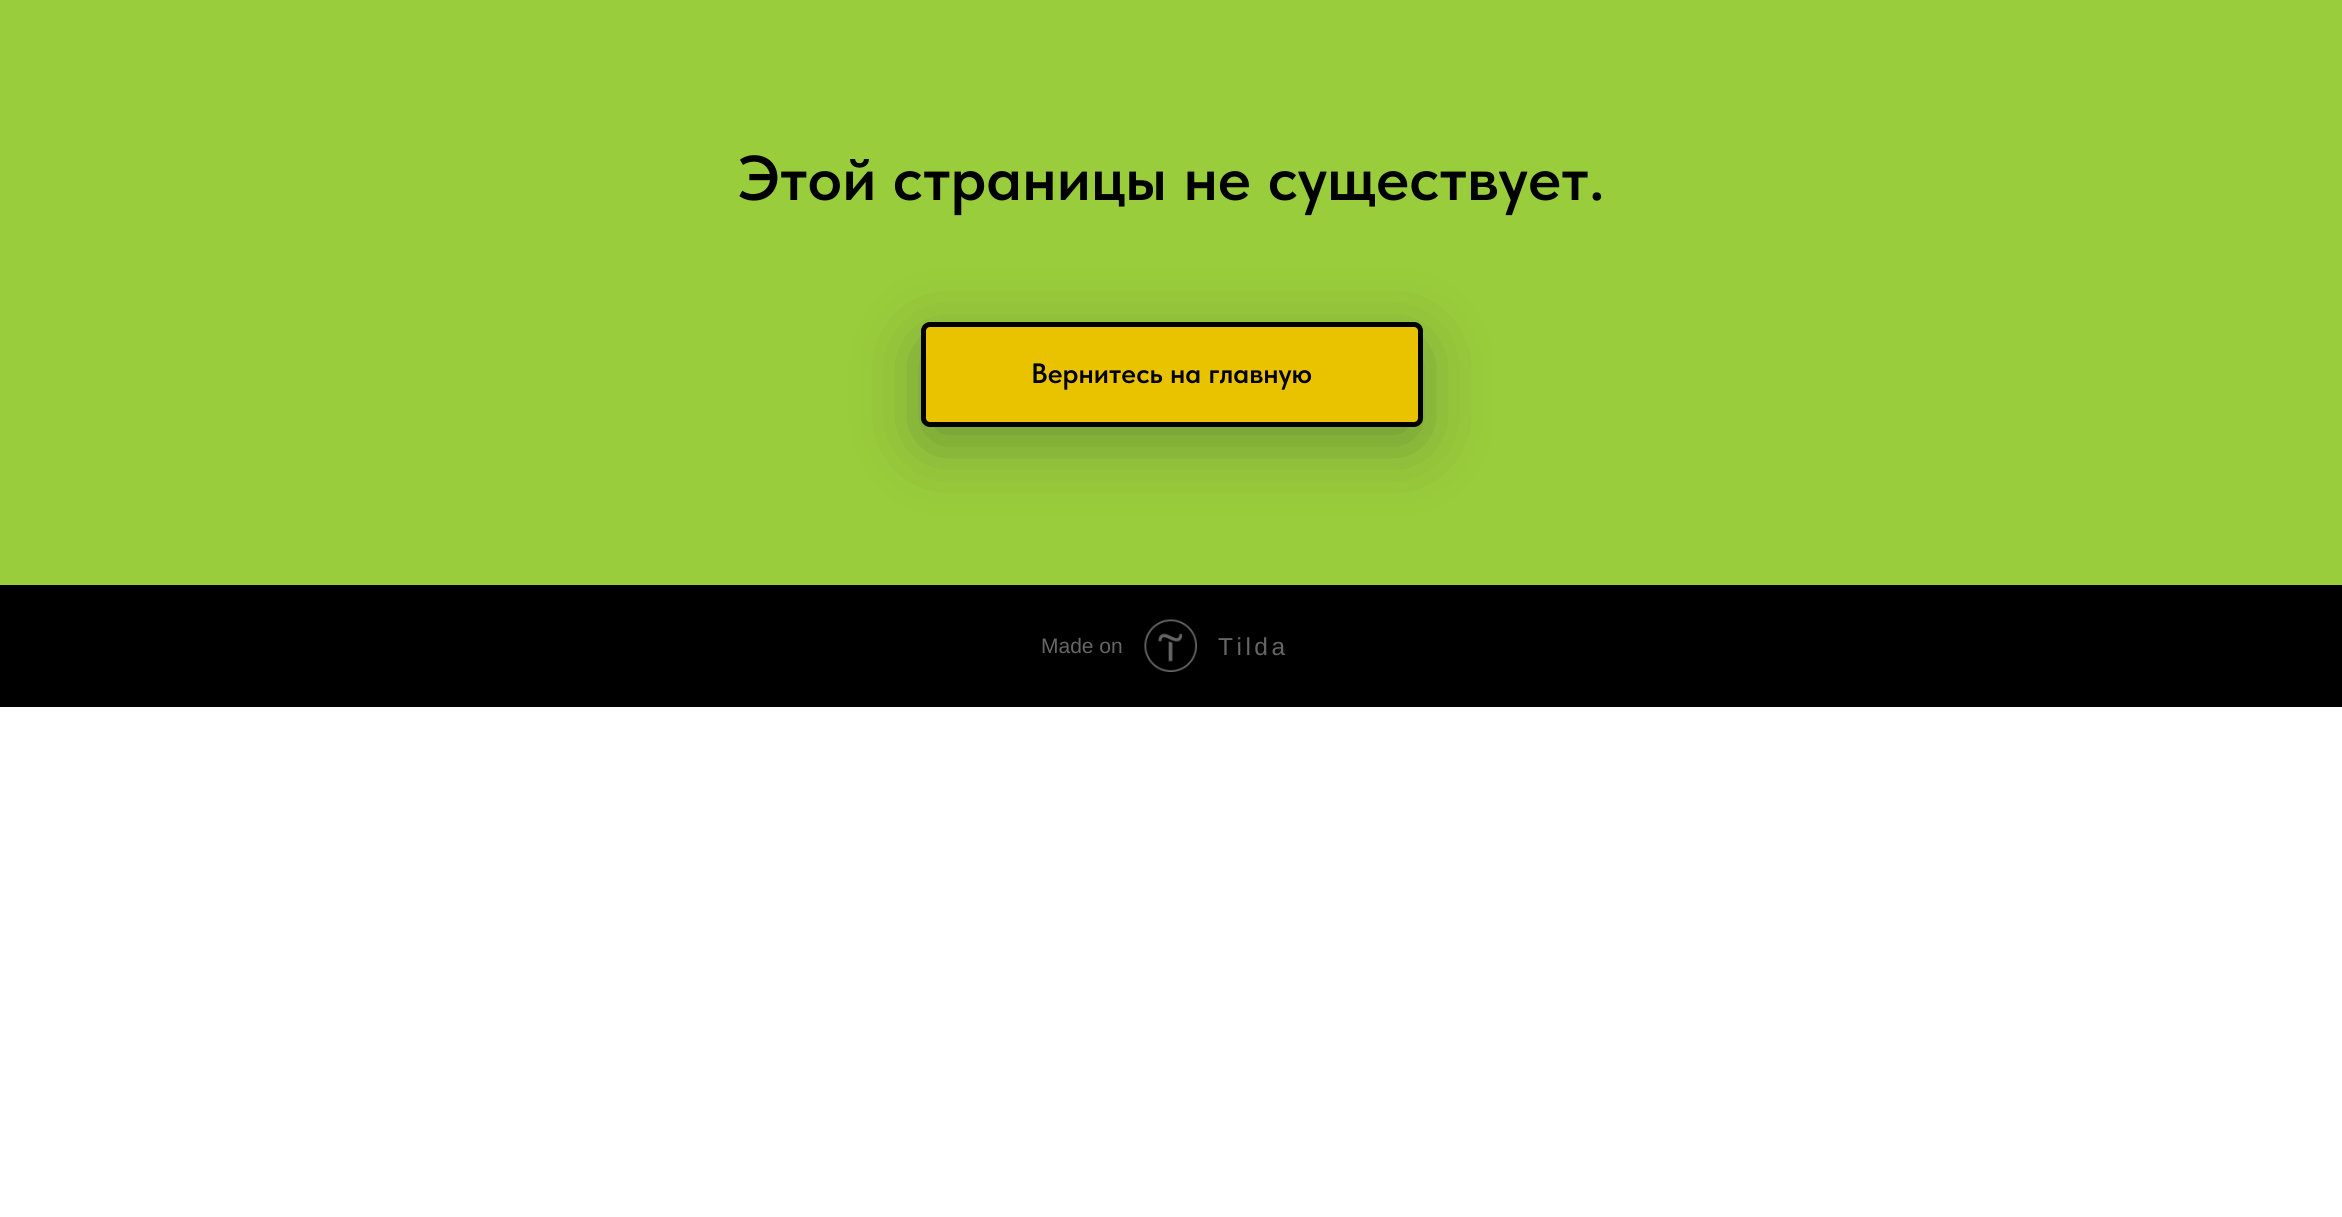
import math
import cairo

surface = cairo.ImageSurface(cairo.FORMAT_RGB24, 2342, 1217)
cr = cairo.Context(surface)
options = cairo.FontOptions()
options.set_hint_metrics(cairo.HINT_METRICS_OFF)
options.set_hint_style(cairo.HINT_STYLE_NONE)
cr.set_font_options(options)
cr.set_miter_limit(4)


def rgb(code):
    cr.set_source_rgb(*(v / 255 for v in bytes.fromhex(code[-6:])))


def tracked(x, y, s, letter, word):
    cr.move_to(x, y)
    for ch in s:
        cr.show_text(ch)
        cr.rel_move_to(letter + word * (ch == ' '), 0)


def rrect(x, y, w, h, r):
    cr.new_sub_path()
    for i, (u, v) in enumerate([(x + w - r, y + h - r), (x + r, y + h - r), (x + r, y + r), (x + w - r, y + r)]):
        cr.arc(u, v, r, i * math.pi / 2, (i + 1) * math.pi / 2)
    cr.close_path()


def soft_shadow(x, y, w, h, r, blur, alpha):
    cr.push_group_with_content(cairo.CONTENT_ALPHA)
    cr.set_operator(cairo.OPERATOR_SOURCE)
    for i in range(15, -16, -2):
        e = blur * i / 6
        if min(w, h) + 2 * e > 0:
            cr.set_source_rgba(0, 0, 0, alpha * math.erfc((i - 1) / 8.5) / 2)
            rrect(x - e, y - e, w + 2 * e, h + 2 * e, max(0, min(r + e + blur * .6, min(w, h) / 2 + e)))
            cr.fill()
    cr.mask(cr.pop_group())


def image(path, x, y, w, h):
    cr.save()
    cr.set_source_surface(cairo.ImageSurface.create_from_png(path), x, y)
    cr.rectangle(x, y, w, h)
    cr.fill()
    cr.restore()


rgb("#ffffff")
cr.paint()
rgb("#9acd3b")
cr.rectangle(0, 0, 2342, 585)
cr.fill()
rgb("#000b30")
soft_shadow(924, 343, 495, 98, 5, 35, 0.3)
rgb("#e9c300")
rrect(923.5, 324.5, 497, 100, 6.5)
cr.fill_preserve()
rgb("#000000")
cr.set_line_width(5)
cr.stroke()
cr.rectangle(0, 585, 2342, 122)
cr.fill()
image("img/1.png", 1144, 619, 53, 53)
cr.select_font_face("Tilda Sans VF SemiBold")
cr.set_font_size(63)
cr.move_to(738, 200)
cr.show_text("Этой страницы не существует.")
cr.set_font_size(28)
cr.move_to(1031, 383)
cr.show_text("Вернитесь на главную")
cr.select_font_face("Liberation Sans")
cr.set_font_size(21)
rgb("#666666")
cr.move_to(1041, 653)
cr.show_text("Made on")
cr.set_font_size(24.5)
tracked(1218, 655, "Tilda", 3.5, 0)
surface.write_to_png("page.png")
